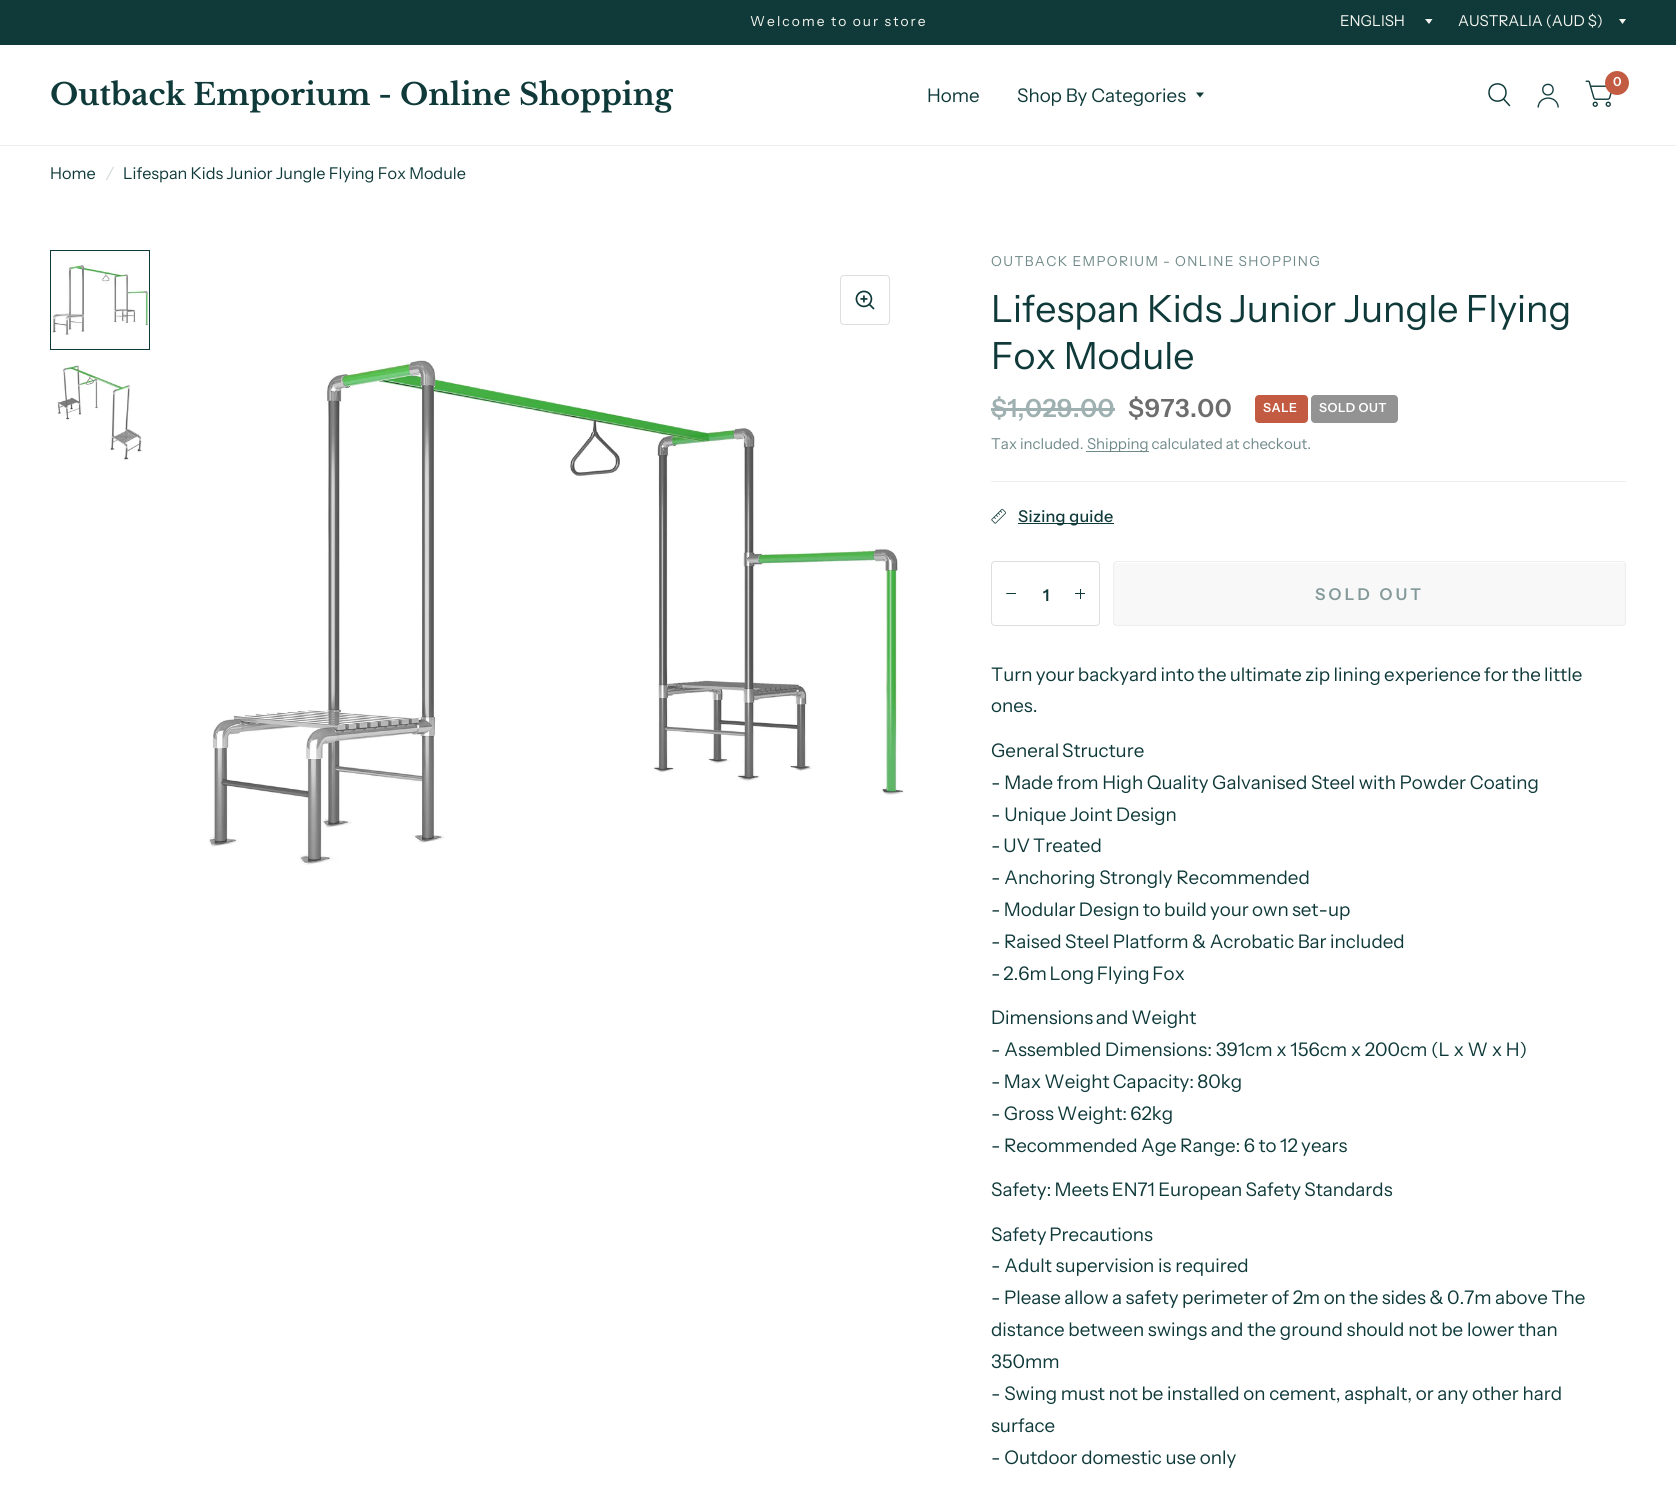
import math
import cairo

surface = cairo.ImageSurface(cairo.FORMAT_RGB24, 1676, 1498)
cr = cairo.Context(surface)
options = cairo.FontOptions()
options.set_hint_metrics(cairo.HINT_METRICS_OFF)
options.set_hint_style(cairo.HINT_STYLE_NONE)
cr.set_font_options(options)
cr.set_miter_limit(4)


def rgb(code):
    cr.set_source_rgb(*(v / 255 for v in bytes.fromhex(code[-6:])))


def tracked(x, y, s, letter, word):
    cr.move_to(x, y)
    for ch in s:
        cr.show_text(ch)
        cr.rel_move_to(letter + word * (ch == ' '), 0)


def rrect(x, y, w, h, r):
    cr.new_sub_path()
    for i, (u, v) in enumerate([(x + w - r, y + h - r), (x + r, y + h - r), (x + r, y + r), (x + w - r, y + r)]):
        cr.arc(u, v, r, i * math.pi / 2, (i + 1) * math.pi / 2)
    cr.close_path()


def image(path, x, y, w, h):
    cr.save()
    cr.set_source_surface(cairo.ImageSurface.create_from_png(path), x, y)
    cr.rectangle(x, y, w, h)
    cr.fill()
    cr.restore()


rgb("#ffffff")
cr.paint()
rgb("#103a3a")
cr.rectangle(0, 0, 1676, 45)
cr.fill()
rgb("#f6f6f0")
cr.new_path()
cr.move_to(1425, 19)
cr.line_to(1432.5, 19)
cr.line_to(1429, 24)
cr.close_path()
cr.fill()
cr.new_path()
cr.move_to(1619, 19)
cr.line_to(1626, 19)
cr.line_to(1622.5, 24)
cr.close_path()
cr.fill()
rgb("#eeeeee")
cr.rectangle(0, 145, 1676, 1)
cr.fill()
rgb("#103a3a")
cr.new_path()
cr.move_to(1196, 92.5)
cr.line_to(1204, 92.5)
cr.line_to(1200, 97.5)
cr.close_path()
cr.fill()
image("img/1.png", 1585, 80, 27, 27)
rgb("#c25b41")
cr.arc(1617, 83, 12, 0, 2 * math.pi)
cr.fill()
cr.new_path()
cr.move_to(1504, 99.5)
cr.line_to(1509.5, 105.5)
cr.move_to(1506, 92.5)
cr.curve_to(1506, 104, 1489, 104, 1489, 92.5)
cr.curve_to(1489, 81, 1506, 81, 1506, 92.5)
cr.close_path()
rgb("#103a3a")
cr.set_line_width(1.5)
cr.set_line_cap(cairo.LINE_CAP_ROUND)
cr.set_line_join(cairo.LINE_JOIN_ROUND)
cr.stroke()
image("img/2.png", 1537, 83, 22, 25)
image("img/3.png", 52, 265, 97, 70)
cr.rectangle(50.5, 250.5, 99, 99)
cr.set_line_width(1)
cr.set_line_cap(cairo.LINE_CAP_BUTT)
cr.set_line_join(cairo.LINE_JOIN_MITER)
cr.stroke()
image("img/4.png", 57, 365, 85, 95)
rrect(840.5, 275.5, 49, 49, 3.5)
rgb("#dedede")
cr.stroke()
image("img/5.png", 855, 290, 20, 20)
image("img/6.png", 208, 360, 697, 505)
rgb("#eeeeee")
cr.rectangle(991, 481, 635, 1)
cr.fill()
rgb("#9fb0b0")
cr.rectangle(991, 408, 124, 3)
cr.fill()
rgb("#c25b41")
rrect(1255, 395, 53, 28, 4)
cr.fill()
rgb("#939393")
rrect(1311, 395, 87, 28, 4)
cr.fill()
rgb("#708989")
cr.rectangle(1086, 451, 63, 1)
cr.fill()
image("img/7.png", 991, 509, 15, 15)
rgb("#103a3a")
cr.rectangle(1018, 523, 96, 1)
cr.fill()
rrect(991.5, 561.5, 108, 64, 3.5)
rgb("#dedede")
cr.stroke()
rgb("#103a3a")
cr.new_path()
cr.move_to(1006.5, 594)
cr.line_to(1006, 593)
cr.line_to(1016, 593)
cr.line_to(1016, 594)
cr.close_path()
cr.fill()
cr.rectangle(1080, 589, 1, 10)
cr.fill()
cr.rectangle(1075, 593, 10, 1)
cr.fill()
rrect(1113.5, 561.5, 512, 64, 3.5)
rgb("#eeeeee")
cr.stroke()
cr.set_source_rgba(0, 0, 0, 0.03)
cr.rectangle(1114, 563, 511, 62)
cr.fill()
cr.select_font_face("Instrument Sans")
cr.set_font_size(13.75)
rgb("#f6f6f0")
tracked(750, 26, "Welcome to our store", 2.1, -0.5)
cr.set_font_size(15)
cr.move_to(1340, 26)
cr.show_text("ENGLISH")
cr.move_to(1458, 26)
cr.show_text("AUSTRALIA (AUD $)")
cr.select_font_face("Libre Baskerville", cairo.FONT_SLANT_NORMAL, cairo.FONT_WEIGHT_BOLD)
cr.set_font_size(30)
rgb("#103a3a")
cr.move_to(50, 105)
cr.show_text("Outback Emporium - Online Shopping")
cr.select_font_face("Instrument Sans")
cr.set_font_size(18.75)
cr.move_to(927, 102)
cr.show_text("Home")
cr.move_to(1017, 102)
cr.show_text("Shop By Categories")
cr.select_font_face("Instrument Sans SemiBold")
cr.set_font_size(12.5)
rgb("#ffffff")
cr.move_to(1613, 86)
cr.show_text("0")
cr.select_font_face("Instrument Sans")
cr.set_font_size(16.25)
rgb("#103a3a")
cr.move_to(50, 179)
cr.show_text("Home")
cr.select_font_face("Instrument Sans", cairo.FONT_SLANT_ITALIC)
rgb("#cfd8d8")
cr.move_to(106, 179)
cr.show_text("/")
cr.select_font_face("Instrument Sans")
rgb("#103a3a")
cr.move_to(123, 179)
cr.show_text("Lifespan Kids Junior Jungle Flying Fox Module")
cr.set_font_size(13.75)
rgb("#708989")
tracked(991, 266, "OUTBACK EMPORIUM - ONLINE SHOPPING", 1.4, -0.5)
cr.set_font_size(37.5)
rgb("#103a3a")
cr.move_to(991, 322)
cr.show_text("Lifespan Kids Junior Jungle Flying")
cr.move_to(991, 369)
cr.show_text("Fox Module")
cr.select_font_face("Instrument Sans SemiBold")
cr.set_font_size(25)
rgb("#9fb0b0")
tracked(991, 417, "$1,029.00", 0.5, 0)
rgb("#6d6d6d")
tracked(1128, 417, "$973.00", 0.5, 0)
cr.set_font_size(12.5)
rgb("#ffffff")
tracked(1263, 412, "SALE", 0.5, 0)
tracked(1319, 412, "SOLD OUT", 0.5, 0)
cr.select_font_face("Instrument Sans")
cr.set_font_size(15)
rgb("#708989")
cr.move_to(991, 449)
cr.show_text("Tax included.")
cr.move_to(1087, 449)
cr.show_text("Shipping calculated at checkout.")
cr.select_font_face("Instrument Sans Medium")
cr.set_font_size(16.25)
rgb("#103a3a")
tracked(1018, 522, "Sizing guide", 0.25, 0)
cr.select_font_face("Instrument Sans SemiBold")
cr.move_to(1043, 601)
cr.show_text("1")
rgb("#849999")
tracked(1315, 600, "SOLD OUT", 3.25, 0)
cr.select_font_face("Instrument Sans")
cr.set_font_size(18.75)
rgb("#103a3a")
tracked(991, 681, "Turn your backyard into the ultimate zip lining experience for the little", 0, -0.5)
cr.move_to(991, 712)
cr.show_text("ones.")
tracked(991, 757, "General Structure", 0, -1)
tracked(991, 789, "- Made from High Quality Galvanised Steel with Powder Coating", 0, -0.1)
cr.move_to(991, 821)
cr.show_text("- Unique Joint Design")
tracked(991, 852, "- UV Treated", 0, -1)
cr.move_to(991, 884)
cr.show_text("- Anchoring Strongly Recommended")
tracked(991, 916, "- Modular Design to build your own set-up", 0, -0.5)
tracked(991, 948, "- Raised Steel Platform & Acrobatic Bar included", 0, -0.25)
tracked(991, 980, "- 2.6m Long Flying Fox", 0, -1)
tracked(991, 1024, "Dimensions and Weight", 0, -1)
cr.move_to(991, 1056)
cr.show_text("- Assembled Dimensions: 391cm x 156cm x 200cm (L x W x H)")
tracked(991, 1088, "- Max Weight Capacity: 80kg", 0, -0.5)
tracked(991, 1120, "- Gross Weight: 62kg", 0, -0.5)
tracked(991, 1152, "- Recommended Age Range: 6 to 12 years", 0, -0.25)
tracked(991, 1196, "Safety: Meets EN71 European Safety Standards", 0, -0.5)
tracked(991, 1241, "Safety Precautions", 0, -1)
cr.move_to(991, 1272)
cr.show_text("- Adult supervision is required")
tracked(991, 1304, "- Please allow a safety perimeter of 2m on the sides & 0.7m above The", 0, -0.25)
cr.move_to(991, 1336)
cr.show_text("distance between swings and the ground should not be lower than")
cr.move_to(991, 1368)
cr.show_text("350mm")
tracked(991, 1400, "- Swing must not be installed on cement, asphalt, or any other hard", 0, -0.1)
cr.move_to(991, 1432)
cr.show_text("surface")
cr.move_to(991, 1464)
cr.show_text("- Outdoor domestic use only")
surface.write_to_png("page.png")
